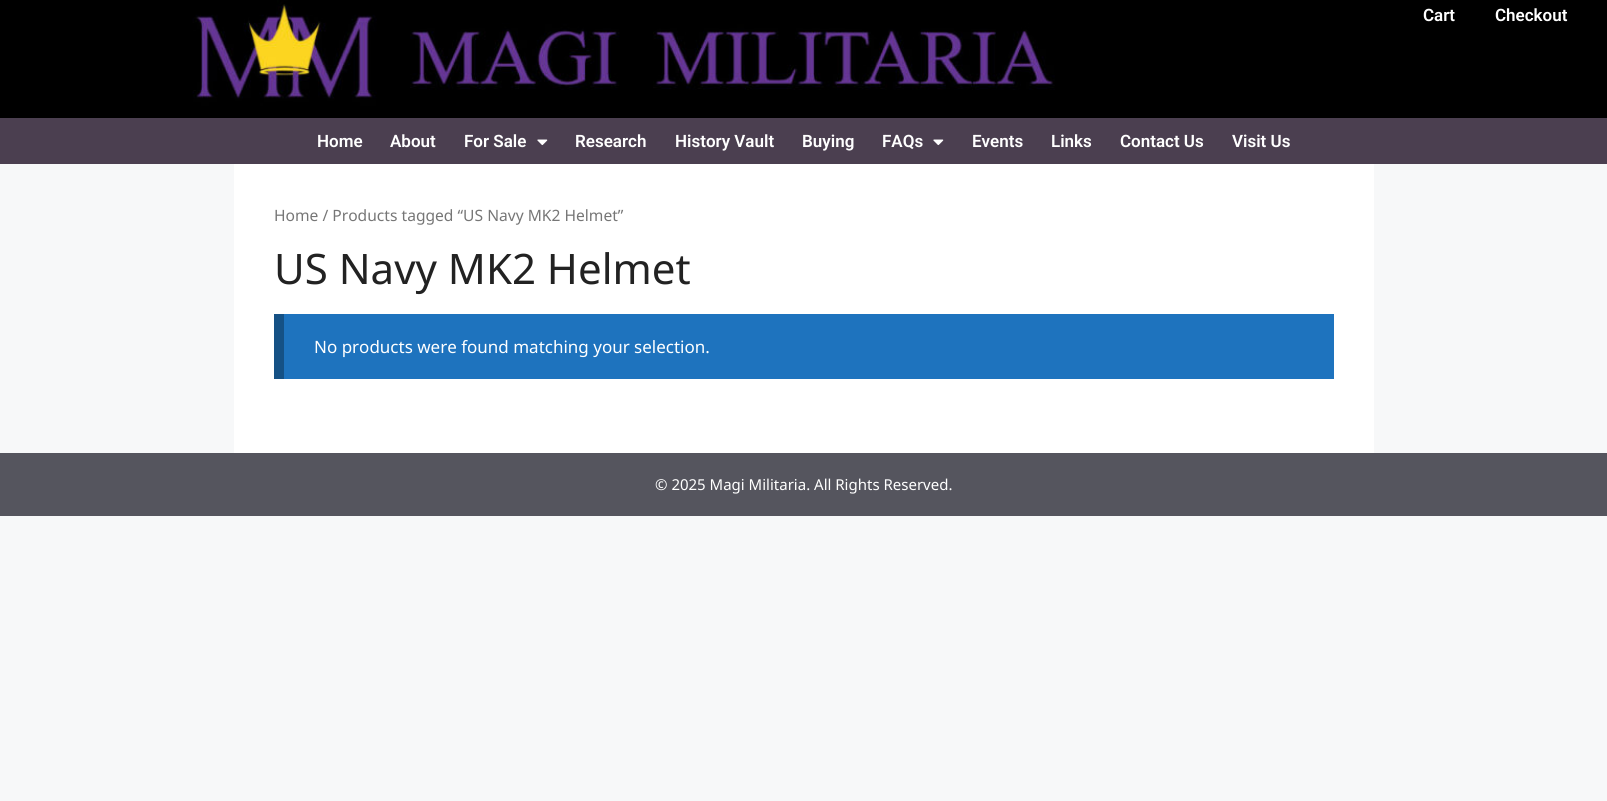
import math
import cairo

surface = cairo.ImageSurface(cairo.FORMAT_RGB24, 1607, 801)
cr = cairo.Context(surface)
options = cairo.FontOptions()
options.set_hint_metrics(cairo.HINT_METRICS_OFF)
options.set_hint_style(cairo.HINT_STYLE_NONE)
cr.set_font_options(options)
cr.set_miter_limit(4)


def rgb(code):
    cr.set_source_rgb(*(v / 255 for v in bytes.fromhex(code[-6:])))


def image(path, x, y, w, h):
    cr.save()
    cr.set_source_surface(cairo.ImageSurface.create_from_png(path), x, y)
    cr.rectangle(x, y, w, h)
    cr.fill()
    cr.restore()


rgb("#f7f8f9")
cr.paint()
image("img/1.png", 0, 0, 1607, 118)
rgb("#4b3f50")
cr.rectangle(0, 118, 1607, 46)
cr.fill()
image("img/2.png", 537, 139, 11, 7)
image("img/2.png", 933, 139, 11, 7)
for x, y, w, h, color in [
    (234, 164, 1140, 289, "#ffffff"),
    (284, 314, 1050, 65, "#1e73be"),
    (274, 314, 10, 65, "#155185"),
    (0, 453, 1607, 63, "#55555e"),
]:
    rgb(color)
    cr.rectangle(x, y, w, h)
    cr.fill()
cr.select_font_face("Roboto SemiBold")
cr.set_font_size(17)
rgb("#ffffff")
for x, y, s in [
    (1423, 21, "Cart"),
    (1495, 21, "Checkout"),
    (317, 147, "Home"),
    (390, 147, "About"),
    (464, 147, "For Sale"),
    (575, 147, "Research"),
    (675, 147, "History Vault"),
    (802, 147, "Buying"),
    (882, 147, "FAQs"),
    (972, 147, "Events"),
    (1051, 147, "Links"),
    (1120, 147, "Contact Us"),
    (1232, 147, "Visit Us"),
]:
    cr.move_to(x, y)
    cr.show_text(s)
cr.select_font_face("Noto Sans")
cr.set_font_size(15.6)
rgb("#767676")
cr.move_to(274, 221)
cr.show_text("Home / Products tagged “US Navy MK2 Helmet”")
cr.set_font_size(42)
rgb("#222222")
cr.move_to(274, 284)
cr.show_text("US Navy MK2 Helmet")
cr.set_font_size(17)
rgb("#ffffff")
cr.move_to(314, 353)
cr.show_text("No products were found matching your selection.")
cr.set_font_size(15)
cr.move_to(655, 490)
cr.show_text("© 2025 Magi Militaria. All Rights Reserved.")
surface.write_to_png("page.png")
